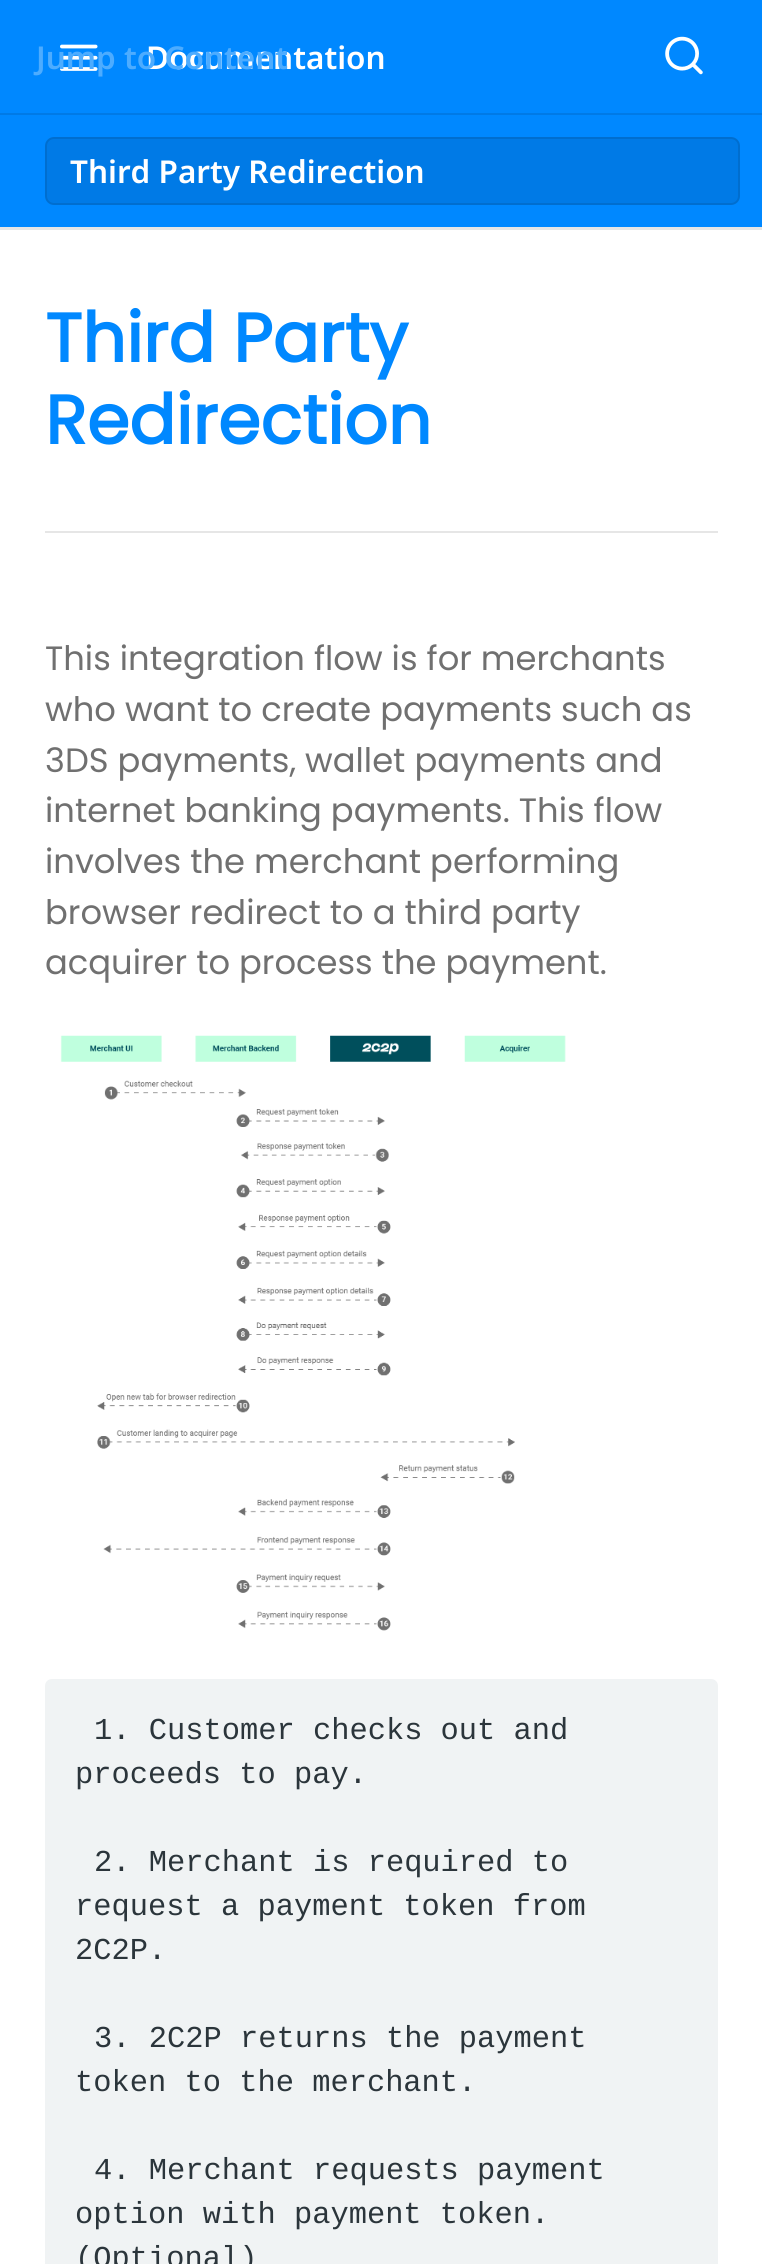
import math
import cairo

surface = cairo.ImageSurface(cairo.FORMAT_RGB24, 762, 2264)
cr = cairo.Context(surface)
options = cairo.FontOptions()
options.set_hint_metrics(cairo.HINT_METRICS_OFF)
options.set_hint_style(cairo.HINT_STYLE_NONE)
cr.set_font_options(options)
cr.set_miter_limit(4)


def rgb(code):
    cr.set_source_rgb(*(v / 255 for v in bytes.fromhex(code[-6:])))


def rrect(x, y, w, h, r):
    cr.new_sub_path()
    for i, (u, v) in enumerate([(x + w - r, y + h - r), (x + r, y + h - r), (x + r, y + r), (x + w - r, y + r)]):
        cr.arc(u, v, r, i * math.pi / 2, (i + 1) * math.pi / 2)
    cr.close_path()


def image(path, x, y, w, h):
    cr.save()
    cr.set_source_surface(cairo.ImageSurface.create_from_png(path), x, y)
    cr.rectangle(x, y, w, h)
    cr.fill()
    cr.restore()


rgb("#ffffff")
cr.paint()
rgb("#e6e6e6")
cr.new_path()
cr.move_to(0, 227)
cr.line_to(0, 230)
cr.line_to(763, 230)
cr.line_to(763, 2)
cr.line_to(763, 227)
cr.close_path()
cr.fill()
rgb("#0088ff")
cr.rectangle(0, 0, 762, 227)
cr.fill()
rgb("#007ae6")
cr.rectangle(0, 113, 762, 2)
cr.fill()
image("img/1.png", 60, 44, 38, 27)
image("img/2.png", 665, 36, 38, 39)
rrect(45, 137, 695, 68, 9)
cr.fill()
rrect(46, 138, 693, 66, 8)
cr.set_source_rgba(0, 0, 0, 0.1)
cr.stroke()
rgb("#e6e6e6")
cr.rectangle(45, 531, 673, 2)
cr.fill()
image("img/3.png", 60, 1035, 506, 596)
rgb("#f0f3f4")
cr.new_path()
cr.move_to(52, 1679)
cr.line_to(711, 1679)
cr.curve_to(715, 1679, 718, 1682, 718, 1686)
cr.line_to(718, 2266)
cr.line_to(45, 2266)
cr.line_to(45, 1686)
cr.curve_to(45, 1682, 48, 1679, 52, 1679)
cr.close_path()
cr.fill()
cr.select_font_face("Noto Sans SemiBold")
cr.set_font_size(31.5)
rgb("#ffffff")
cr.move_to(146, 69)
cr.show_text("Documentation")
rgb("#4dacff")
cr.move_to(36, 69)
cr.show_text("Jump to Content")
rgb("#ffffff")
cr.move_to(70, 183)
cr.show_text("Third Party Redirection")
cr.select_font_face("Poppins", cairo.FONT_SLANT_NORMAL, cairo.FONT_WEIGHT_BOLD)
cr.set_font_size(68.5)
rgb("#0088ff")
cr.move_to(45, 362)
cr.show_text("Third Party")
cr.move_to(45, 444)
cr.show_text("Redirection")
cr.select_font_face("Poppins")
cr.set_font_size(33.75)
rgb("#707070")
for x, y, s in [
    (45, 670, "This integration flow is for merchants"),
    (45, 721, "who want to create payments such as"),
    (45, 772, "3DS payments, wallet payments and"),
    (45, 822, "internet banking payments. This flow"),
    (45, 873, "involves the merchant performing"),
    (45, 924, "browser redirect to a third party"),
    (45, 974, "acquirer to process the payment."),
]:
    cr.move_to(x, y)
    cr.show_text(s)
cr.select_font_face("Liberation Mono")
cr.set_font_size(30.4)
rgb("#2b353b")
for x, y, s in [
    (94, 1739, "1. Customer checks out and"),
    (75, 1783, "proceeds to pay."),
    (94, 1871, "2. Merchant is required to"),
    (75, 1915, "request a payment token from"),
    (75, 1959, "2C2P."),
    (94, 2047, "3. 2C2P returns the payment"),
    (75, 2091, "token to the merchant."),
    (94, 2179, "4. Merchant requests payment"),
    (75, 2223, "option with payment token."),
    (75, 2267, "(Optional)"),
]:
    cr.move_to(x, y)
    cr.show_text(s)
surface.write_to_png("page.png")
